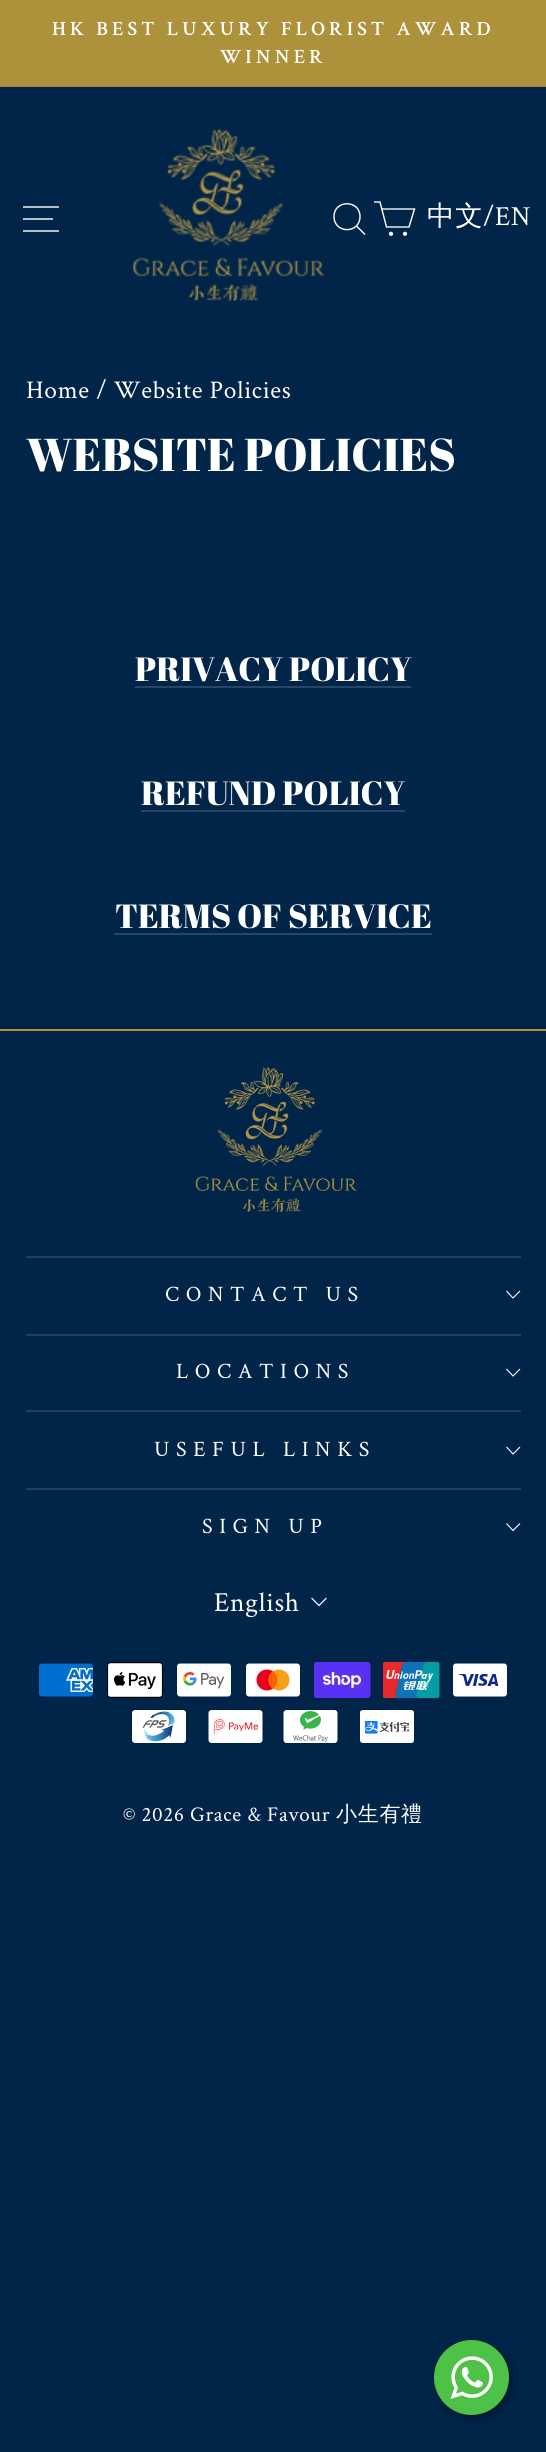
import math
import cairo

surface = cairo.ImageSurface(cairo.FORMAT_RGB24, 546, 2452)
cr = cairo.Context(surface)
options = cairo.FontOptions()
options.set_hint_metrics(cairo.HINT_METRICS_OFF)
options.set_hint_style(cairo.HINT_STYLE_NONE)
cr.set_font_options(options)
cr.set_miter_limit(4)


def rgb(code):
    cr.set_source_rgb(*(v / 255 for v in bytes.fromhex(code[-6:])))


def tracked(x, y, s, letter, word):
    cr.move_to(x, y)
    for ch in s:
        cr.show_text(ch)
        cr.rel_move_to(letter + word * (ch == ' '), 0)


def rrect(x, y, w, h, r):
    cr.new_sub_path()
    for i, (u, v) in enumerate([(x + w - r, y + h - r), (x + r, y + h - r), (x + r, y + r), (x + w - r, y + r)]):
        cr.arc(u, v, r, i * math.pi / 2, (i + 1) * math.pi / 2)
    cr.close_path()


def soft_shadow(x, y, w, h, r, blur, alpha):
    cr.push_group_with_content(cairo.CONTENT_ALPHA)
    cr.set_operator(cairo.OPERATOR_SOURCE)
    for i in range(15, -16, -2):
        e = blur * i / 6
        if min(w, h) + 2 * e > 0:
            cr.set_source_rgba(0, 0, 0, alpha * math.erfc((i - 1) / 8.5) / 2)
            rrect(x - e, y - e, w + 2 * e, h + 2 * e, max(0, min(r + e + blur * .6, min(w, h) / 2 + e)))
            cr.fill()
    cr.mask(cr.pop_group())


def image(path, x, y, w, h):
    cr.save()
    cr.set_source_surface(cairo.ImageSurface.create_from_png(path), x, y)
    cr.rectangle(x, y, w, h)
    cr.fill()
    cr.restore()


rgb("#002549")
cr.paint()
rgb("#ae923b")
cr.rectangle(0, 0, 546, 87)
cr.fill()
cr.save()
cr.set_fill_rule(cairo.FILL_RULE_EVEN_ODD)
cr.new_path()
cr.move_to(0, 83)
cr.line_to(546, 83)
cr.line_to(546, 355)
cr.line_to(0, 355)
cr.close_path()
cr.move_to(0, 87)
cr.line_to(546, 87)
cr.line_to(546, 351)
cr.line_to(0, 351)
cr.close_path()
cr.clip()
rgb("#000000")
soft_shadow(0, 87, 546, 264, 0, 1, 0.2)
cr.restore()
cr.new_path()
cr.move_to(23, 207)
cr.line_to(59, 207)
cr.move_to(23, 219)
cr.line_to(53, 219)
cr.move_to(23, 231)
cr.line_to(59, 231)
rgb("#ffffff")
cr.set_line_width(1.4)
cr.stroke()
image("img/1.png", 132, 128, 193, 174)
cr.new_path()
cr.move_to(360, 216.5)
cr.curve_to(360, 234, 334, 234, 334, 216.5)
cr.curve_to(334, 199.5, 360, 199.5, 360, 216.5)
cr.close_path()
cr.move_to(365, 234.5)
cr.line_to(356.5, 226)
cr.stroke()
cr.new_path()
cr.move_to(382, 209)
cr.line_to(414.5, 209)
cr.line_to(409, 227)
cr.line_to(386.5, 227)
cr.line_to(380, 202)
cr.line_to(374, 202)
cr.stroke()
cr.arc(391, 233.8, 1.4, 0, 2 * math.pi)
cr.fill_preserve()
cr.stroke()
cr.arc(405, 233.8, 1.4, 0, 2 * math.pi)
cr.fill_preserve()
cr.stroke()
for x, y, w, h, color in [
    (135, 686, 276, 2, "#264664"),
    (141, 810, 264, 2, "#264664"),
    (114, 933, 318, 2, "#264664"),
    (0, 1029, 546, 2, "#ae923b"),
]:
    rgb(color)
    cr.rectangle(x, y, w, h)
    cr.fill()
image("img/2.png", 195, 1067, 162, 146)
rgb("#1f3f5f")
cr.rectangle(26, 1256, 495, 2)
cr.fill()
cr.new_path()
cr.move_to(506.5, 1291)
cr.line_to(513, 1298)
cr.line_to(520, 1291)
rgb("#ffffff")
cr.set_line_width(1.1)
cr.stroke()
rgb("#1f3f5f")
cr.rectangle(26, 1334, 495, 2)
cr.fill()
cr.new_path()
cr.move_to(506.5, 1369)
cr.line_to(513, 1376)
cr.line_to(520, 1369)
rgb("#ffffff")
cr.stroke()
rgb("#1f3f5f")
cr.rectangle(26, 1410, 495, 2)
cr.fill()
cr.new_path()
cr.move_to(506.5, 1447)
cr.line_to(513, 1454)
cr.line_to(520, 1447)
rgb("#ffffff")
cr.stroke()
rgb("#1f3f5f")
cr.rectangle(26, 1488, 495, 2)
cr.fill()
cr.new_path()
cr.move_to(506.5, 1523.5)
cr.line_to(513, 1530.5)
cr.line_to(520, 1523.5)
rgb("#ffffff")
cr.stroke()
cr.new_path()
cr.move_to(311.5, 1598)
cr.line_to(319, 1605.5)
cr.line_to(326.5, 1598)
cr.set_line_width(1.2)
cr.stroke()
image("img/3.png", 38, 1662, 56, 36)
image("img/4.png", 107, 1662, 57, 36)
image("img/5.png", 176, 1662, 56, 36)
image("img/6.png", 245, 1662, 56, 36)
image("img/7.png", 314, 1662, 57, 36)
image("img/8.png", 383, 1662, 57, 36)
image("img/9.png", 452, 1662, 56, 36)
image("img/10.png", 131, 1709, 56, 35)
image("img/11.png", 207, 1709, 57, 35)
image("img/12.png", 282, 1709, 57, 35)
image("img/13.png", 359, 1709, 56, 35)
rgb("#000000")
soft_shadow(437, 2343, 75, 75, 37.5, 4.5, 0.4)
rgb("#4dc247")
cr.arc(471.5, 2377.5, 37.5, 0, 2 * math.pi)
cr.fill()
image("img/14.png", 450, 2356, 43, 43)
cr.select_font_face("Crimson Text SemiBold")
cr.set_font_size(20.25)
rgb("#ffffff")
tracked(52, 35, "HK BEST LUXURY FLORIST AWARD", 4.05, 0)
tracked(220, 63, "WINNER", 4.05, 0)
cr.select_font_face("WenQuanYi Zen Hei Medium")
cr.set_font_size(27.5)
tracked(427, 225, "中文", 0.7, 0)
cr.select_font_face("Crimson Text")
tracked(483, 225, "/EN", 0.7, 0)
cr.set_font_size(25.5)
tracked(26, 398, "Home / Website Policies", 0.7, 0)
cr.select_font_face("Abril Fatface")
cr.set_font_size(46)
cr.move_to(26, 471)
cr.show_text("WEBSITE POLICIES")
cr.set_font_size(33.5)
for x, y, s in [
    (135, 681, "PRIVACY POLICY"),
    (141, 805, "REFUND POLICY"),
    (115, 928, "TERMS OF SERVICE"),
]:
    cr.move_to(x, y)
    cr.show_text(s)
cr.select_font_face("Crimson Text")
cr.set_font_size(22)
for x, y, s in [
    (165, 1301, "CONTACT US"),
    (176, 1378, "LOCATIONS"),
    (154, 1456, "USEFUL LINKS"),
    (202, 1533, "SIGN UP"),
]:
    tracked(x, y, s, 6.6, 0)
cr.set_font_size(27.5)
tracked(214, 1611, "English", 0.7, 0)
cr.set_font_size(21)
tracked(123, 1821, "© 2026 Grace & Favour", 0.7, 0)
cr.select_font_face("WenQuanYi Zen Hei Medium")
tracked(336, 1821, "小生有禮", 0.7, 0)
surface.write_to_png("page.png")
